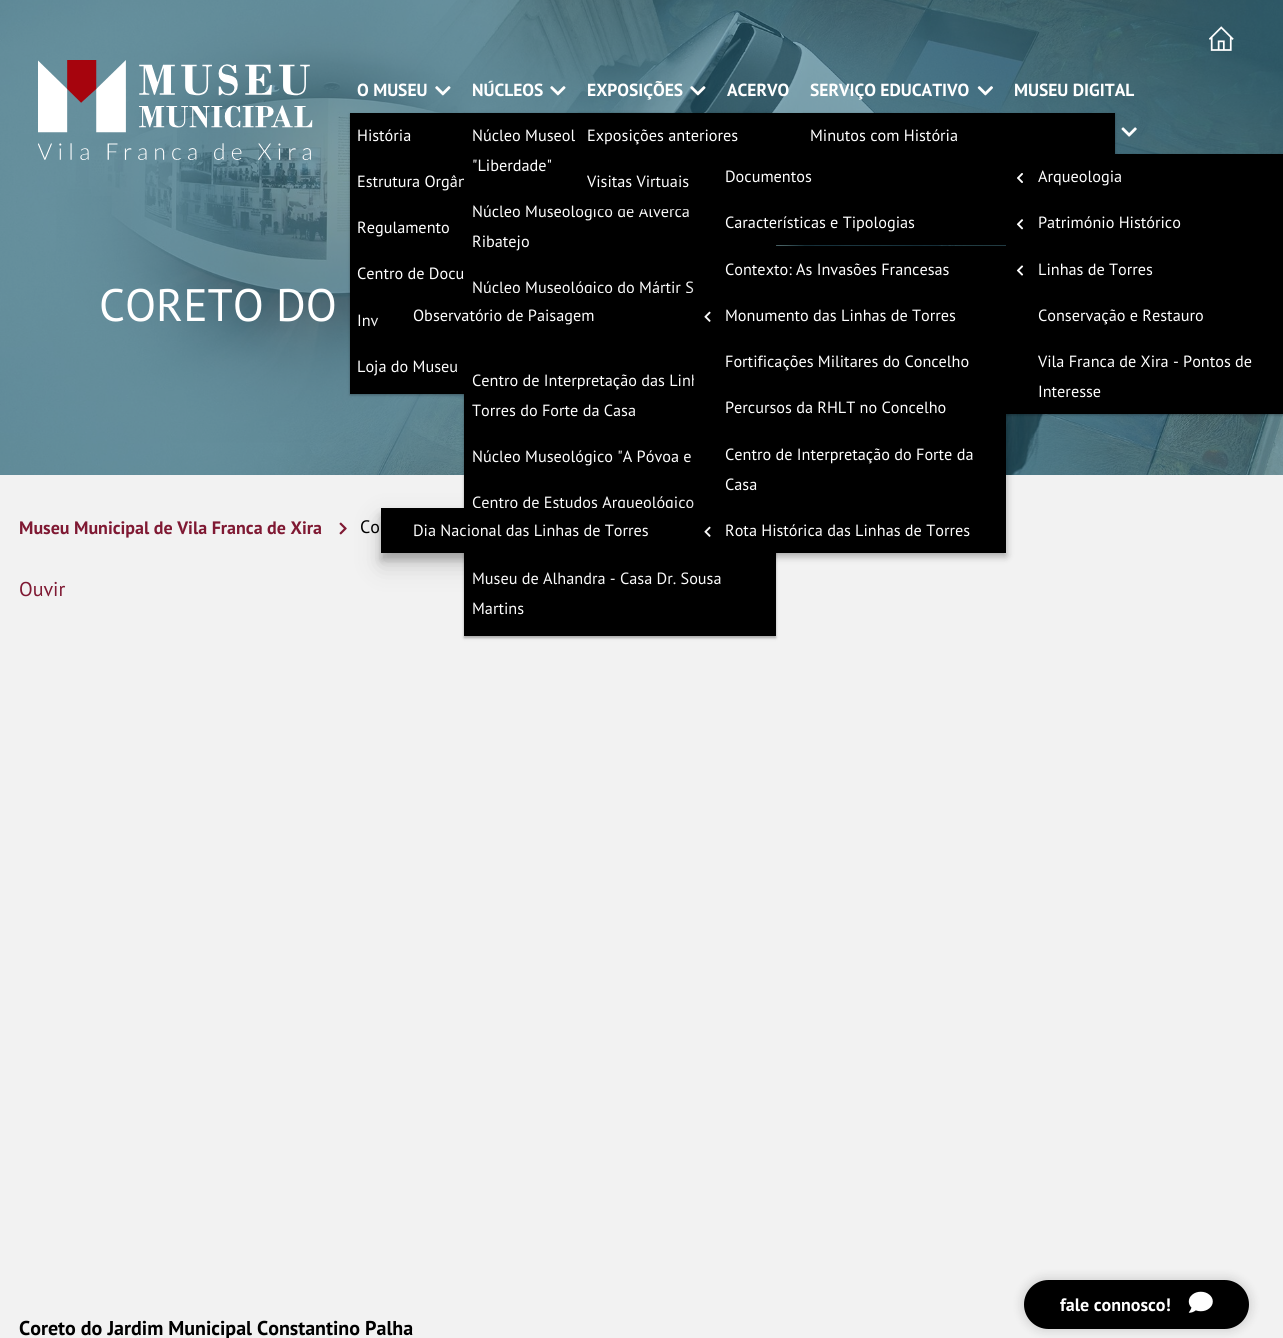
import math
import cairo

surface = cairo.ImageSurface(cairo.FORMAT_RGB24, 1283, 1338)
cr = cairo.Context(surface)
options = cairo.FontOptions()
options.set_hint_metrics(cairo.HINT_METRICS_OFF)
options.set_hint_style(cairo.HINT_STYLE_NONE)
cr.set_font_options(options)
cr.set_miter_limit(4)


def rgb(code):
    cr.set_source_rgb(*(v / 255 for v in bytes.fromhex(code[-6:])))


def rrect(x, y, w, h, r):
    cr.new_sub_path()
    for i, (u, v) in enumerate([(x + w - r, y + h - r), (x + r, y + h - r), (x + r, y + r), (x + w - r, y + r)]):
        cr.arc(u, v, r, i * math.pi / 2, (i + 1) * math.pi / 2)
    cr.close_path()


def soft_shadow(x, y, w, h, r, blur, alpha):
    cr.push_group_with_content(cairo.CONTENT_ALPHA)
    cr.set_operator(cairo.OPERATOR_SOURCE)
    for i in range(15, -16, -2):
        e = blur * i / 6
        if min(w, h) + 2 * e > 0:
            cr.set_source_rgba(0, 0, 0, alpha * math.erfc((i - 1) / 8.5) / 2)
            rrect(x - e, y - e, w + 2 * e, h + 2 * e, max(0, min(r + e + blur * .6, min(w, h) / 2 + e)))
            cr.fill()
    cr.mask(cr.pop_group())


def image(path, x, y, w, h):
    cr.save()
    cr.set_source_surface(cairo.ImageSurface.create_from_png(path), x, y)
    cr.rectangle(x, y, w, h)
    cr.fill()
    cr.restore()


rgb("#f2f2f2")
cr.paint()
image("img/1.png", 0, 0, 1283, 475)
image("img/2.png", 38, 60, 275, 100)
image("img/3.png", 1209, 26, 25, 25)
image("img/4.png", 550, 86, 16, 10)
rgb("#000000")
soft_shadow(350, 114, 313, 281, 0, 1, 0.22)
soft_shadow(350, 114, 313, 281, 0, 2, 0.1)
rgb("#000000")
cr.rectangle(350, 113, 114, 281)
cr.fill()
rgb("#000000")
soft_shadow(464, 114, 312, 524, 0, 1, 0.22)
soft_shadow(464, 114, 312, 524, 0, 2, 0.1)
image("img/5.png", 435, 86, 16, 10)
image("img/6.png", 690, 86, 16, 10)
image("img/7.png", 977, 86, 16, 10)
image("img/8.png", 1121, 127, 16, 10)
image("img/13.png", 339, 522, 8, 13)
soft_shadow(1020, 1276, 233, 57, 28.5, 4, 0.1)
rgb("#000000")
rrect(1024, 1280, 225, 49, 24.5)
cr.fill()
image("img/14.png", 1188, 1291, 25, 22)
cr.select_font_face("PT Sans")
cr.set_font_size(45.5)
rgb("#ffffff")
cr.move_to(99, 321)
cr.show_text("CORETO DO")
cr.select_font_face("PT Sans", cairo.FONT_SLANT_NORMAL, cairo.FONT_WEIGHT_BOLD)
cr.set_font_size(17.5)
cr.move_to(472, 96)
cr.show_text("NÚCLEOS")
cr.move_to(357, 96)
cr.show_text("O MUSEU")
cr.select_font_face("PT Sans")
cr.set_font_size(16.25)
cr.move_to(357, 141)
cr.show_text("História")
cr.move_to(357, 187)
cr.show_text("Estrutura Orgân")
rgb("#000000")
cr.rectangle(464, 113, 312, 523)
cr.fill()
rgb("#ffffff")
for x, y, s in [
    (472, 614, "Martins"),
    (472, 584, "Museu de Alhandra - Casa Dr. Sousa"),
    (472, 508, "Centro de Estudos Arqueológico"),
    (472, 462, "Núcleo Museológico \"A Póvoa e"),
    (472, 416, "Torres do Forte da Casa"),
    (472, 386, "Centro de Interpretação das Linh"),
    (472, 293, "Núcleo Museológico do Mártir S"),
    (472, 247, "Ribatejo"),
    (472, 217, "Núcleo Museológico de Alverca"),
    (472, 171, "\"Liberdade\""),
    (472, 141, "Núcleo Museol"),
    (357, 233, "Regulamento"),
    (357, 279, "Centro de Docu"),
    (357, 326, "Inv"),
    (357, 372, "Loja do Museu"),
]:
    cr.move_to(x, y)
    cr.show_text(s)
cr.select_font_face("PT Sans", cairo.FONT_SLANT_NORMAL, cairo.FONT_WEIGHT_BOLD)
cr.set_font_size(17.5)
cr.move_to(587, 96)
cr.show_text("EXPOSIÇÕES")
rgb("#000000")
soft_shadow(579, 114, 312, 96, 0, 1, 0.22)
soft_shadow(579, 114, 312, 96, 0, 2, 0.1)
rgb("#000000")
cr.rectangle(579, 113, 224, 96)
cr.fill()
cr.select_font_face("PT Sans")
cr.set_font_size(16.25)
rgb("#ffffff")
cr.move_to(587, 141)
cr.show_text("Exposições anteriores")
cr.move_to(587, 187)
cr.show_text("Visitas Virtuais")
cr.select_font_face("PT Sans", cairo.FONT_SLANT_NORMAL, cairo.FONT_WEIGHT_BOLD)
cr.set_font_size(17.5)
cr.move_to(727, 96)
cr.show_text("ACERVO")
cr.move_to(810, 96)
cr.show_text("SERVIÇO EDUCATIVO")
rgb("#000000")
soft_shadow(803, 114, 312, 96, 0, 1, 0.22)
soft_shadow(803, 114, 312, 96, 0, 2, 0.1)
rgb("#000000")
cr.rectangle(803, 113, 312, 87)
cr.fill()
cr.select_font_face("PT Sans")
cr.set_font_size(16.25)
rgb("#ffffff")
cr.move_to(810, 141)
cr.show_text("Minutos com História")
cr.select_font_face("PT Sans", cairo.FONT_SLANT_NORMAL, cairo.FONT_WEIGHT_BOLD)
cr.set_font_size(17.5)
cr.move_to(1014, 96)
cr.show_text("MUSEU DIGITAL")
rgb("#000000")
soft_shadow(1006, 155, 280, 260, 0, 1, 0.22)
soft_shadow(1006, 155, 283, 260, 0, 2, 0.1)
rgb("#000000")
cr.rectangle(1006, 154, 277, 260)
cr.fill()
image("img/9.png", 1017, 173, 6, 10)
rgb("#000000")
soft_shadow(694, 158, 312, 45, 0, 4, 0.21)
cr.select_font_face("PT Sans")
cr.set_font_size(16.25)
rgb("#ffffff")
cr.move_to(725, 182)
cr.show_text("Documentos")
cr.move_to(1038, 182)
cr.show_text("Arqueologia")
image("img/10.png", 1016, 219, 8, 11)
rgb("#000000")
soft_shadow(694, 204, 312, 45, 0, 4, 0.14)
soft_shadow(694, 204, 312, 45, 0, 4, 0.21)
rgb("#000000")
cr.rectangle(776, 200, 230, 45)
cr.fill()
rgb("#ffffff")
cr.move_to(725, 228)
cr.show_text("Características e Tipologias")
cr.move_to(1038, 228)
cr.show_text("Património Histórico")
image("img/12.png", 1016, 265, 8, 11)
rgb("#000000")
soft_shadow(694, 250, 312, 306, 0, 4, 0.14)
soft_shadow(694, 250, 312, 306, 0, 4, 0.21)
rgb("#000000")
cr.rectangle(694, 246, 312, 307)
cr.fill()
image("img/11.png", 704, 526, 7, 11)
rgb("#000000")
soft_shadow(381, 520, 313, 45, 0, 12.5, 0.17)
soft_shadow(381, 515, 313, 45, 0, 4, 0.21)
rgb("#000000")
cr.rectangle(381, 508, 310, 45)
cr.fill()
rgb("#ffffff")
cr.move_to(413, 536)
cr.show_text("Dia Nacional das Linhas de Torres")
image("img/11.png", 704, 311, 7, 11)
rgb("#000000")
soft_shadow(381, 305, 313, 45, 0, 12.5, 0.17)
soft_shadow(381, 300, 313, 45, 0, 4, 0.21)
rgb("#ffffff")
cr.move_to(413, 321)
cr.show_text("Observatório de Paisagem")
rgb("#000000")
cr.rectangle(480, 293, 210, 4)
cr.fill()
rgb("#ffffff")
for x, y, s in [
    (725, 536, "Rota Histórica das Linhas de Torres"),
    (725, 490, "Casa"),
    (725, 460, "Centro de Interpretação do Forte da"),
    (725, 413, "Percursos da RHLT no Concelho"),
    (725, 367, "Fortificações Militares do Concelho"),
    (725, 321, "Monumento das Linhas de Torres"),
    (725, 275, "Contexto: As Invasões Francesas"),
    (1038, 275, "Linhas de Torres"),
    (1038, 321, "Conservação e Restauro"),
    (1038, 367, "Vila Franca de Xira - Pontos de"),
    (1038, 397, "Interesse"),
]:
    cr.move_to(x, y)
    cr.show_text(s)
cr.select_font_face("PT Sans", cairo.FONT_SLANT_NORMAL, cairo.FONT_WEIGHT_BOLD)
cr.set_font_size(18)
rgb("#7f1933")
cr.move_to(19, 534)
cr.show_text("Museu Municipal de Vila Franca de Xira")
cr.select_font_face("PT Sans")
rgb("#000000")
cr.move_to(360, 533)
cr.show_text("Co")
cr.set_font_size(20)
rgb("#7f1933")
cr.move_to(19, 596)
cr.show_text("Ouvir")
cr.select_font_face("PT Sans", cairo.FONT_SLANT_NORMAL, cairo.FONT_WEIGHT_BOLD)
rgb("#000000")
cr.move_to(19, 1335)
cr.show_text("Coreto do Jardim Municipal Constantino Palha")
cr.set_font_size(18)
rgb("#ffffff")
cr.move_to(1060, 1311)
cr.show_text("fale connosco!")
surface.write_to_png("page.png")
